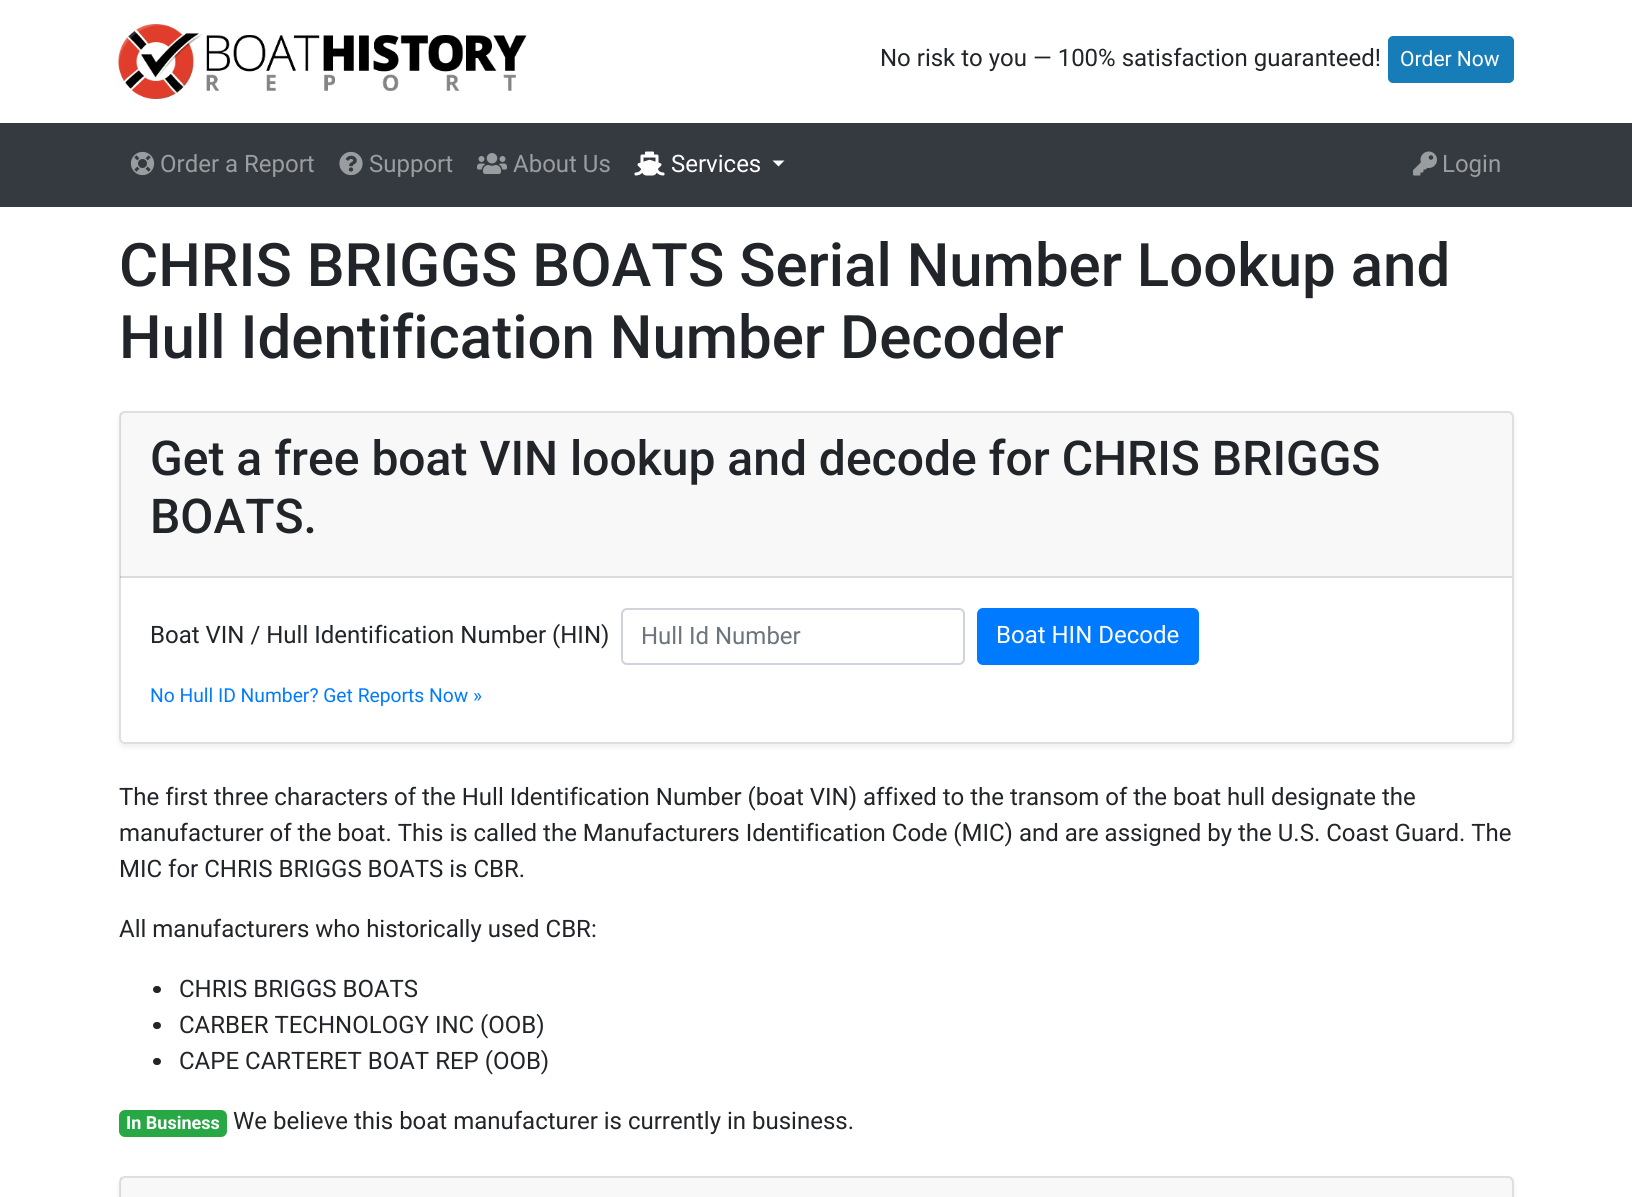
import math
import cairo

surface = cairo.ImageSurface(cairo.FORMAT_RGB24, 1632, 1197)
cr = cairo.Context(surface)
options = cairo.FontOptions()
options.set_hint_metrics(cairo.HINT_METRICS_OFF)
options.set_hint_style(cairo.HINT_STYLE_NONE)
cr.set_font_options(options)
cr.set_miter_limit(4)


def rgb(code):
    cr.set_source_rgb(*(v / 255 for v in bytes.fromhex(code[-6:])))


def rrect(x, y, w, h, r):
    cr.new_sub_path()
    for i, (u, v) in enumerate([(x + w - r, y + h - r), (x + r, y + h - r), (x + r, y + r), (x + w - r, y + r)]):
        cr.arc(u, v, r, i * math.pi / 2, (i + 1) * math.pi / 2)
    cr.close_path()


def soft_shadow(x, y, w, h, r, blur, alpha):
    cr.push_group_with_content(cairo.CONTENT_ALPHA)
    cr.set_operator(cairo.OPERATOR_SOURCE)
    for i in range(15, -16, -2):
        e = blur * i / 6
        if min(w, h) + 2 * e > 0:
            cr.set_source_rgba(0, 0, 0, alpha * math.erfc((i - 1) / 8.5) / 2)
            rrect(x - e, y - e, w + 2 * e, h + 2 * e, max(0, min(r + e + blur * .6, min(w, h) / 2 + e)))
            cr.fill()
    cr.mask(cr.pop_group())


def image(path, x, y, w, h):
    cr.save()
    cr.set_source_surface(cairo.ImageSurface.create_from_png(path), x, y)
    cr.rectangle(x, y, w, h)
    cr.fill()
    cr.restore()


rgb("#ffffff")
cr.paint()
image("img/1.png", 118, 24, 409, 75)
rgb("#177db8")
rrect(1389, 37, 124, 45, 4)
cr.fill_preserve()
cr.stroke()
rgb("#343a40")
cr.rectangle(0, 123, 1632, 84)
cr.fill()
image("img/2.png", 130, 151, 25, 25)
image("img/3.png", 339, 151, 24, 25)
image("img/4.png", 477, 153, 30, 21)
image("img/5.png", 634, 151, 31, 25)
rgb("#ffffff")
cr.new_path()
cr.move_to(772.5, 160.5)
cr.line_to(784.5, 160.5)
cr.line_to(778.5, 166.5)
cr.close_path()
cr.fill()
image("img/6.png", 1413, 151, 24, 25)
rgb("#000000")
soft_shadow(119, 414, 1395, 333, 6, 3, 0.07)
rgb("#ffffff")
rrect(120, 412, 1393, 331, 5)
cr.fill_preserve()
rgb("#dfdfdf")
cr.stroke()
cr.set_source_rgba(0, 0, 0, 0.03)
cr.rectangle(120, 413, 1392, 165)
cr.fill()
cr.set_source_rgba(0, 0, 0, 0.12)
cr.rectangle(120, 576, 1392, 2)
cr.fill()
rrect(622, 609, 342, 55, 5)
rgb("#ced4da")
cr.stroke()
rgb("#007bff")
rrect(978, 609, 220, 55, 5)
cr.fill_preserve()
cr.stroke()
rgb("#212529")
rrect(153, 986, 8, 7, 3.5)
cr.fill()
rrect(153, 1022, 8, 7, 3.5)
cr.fill()
rrect(153, 1058, 8, 7, 3.5)
cr.fill()
rgb("#28a745")
rrect(119, 1110, 108, 27, 6)
cr.fill()
rgb("#000000")
soft_shadow(119, 1179, 1395, 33, 6, 3, 0.07)
rgb("#ffffff")
rrect(120, 1177, 1393, 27, 5)
cr.fill_preserve()
rgb("#dfdfdf")
cr.stroke()
cr.set_source_rgba(0, 0, 0, 0.03)
cr.rectangle(120, 1178, 1392, 19)
cr.fill()
cr.select_font_face("Roboto")
cr.set_font_size(24)
rgb("#212529")
cr.move_to(880, 66)
cr.show_text("No risk to you — 100% satisfaction guaranteed!")
cr.set_font_size(21)
rgb("#ffffff")
cr.move_to(1400, 66)
cr.show_text("Order Now")
cr.set_font_size(24)
rgb("#9a9da0")
for x, y, s in [
    (160, 172, "Order a Report"),
    (369, 172, "Support"),
    (513, 172, "About Us"),
]:
    cr.move_to(x, y)
    cr.show_text(s)
rgb("#ffffff")
cr.move_to(671, 172)
cr.show_text("Services")
rgb("#9a9da0")
cr.move_to(1442, 172)
cr.show_text("Login")
cr.select_font_face("Roboto Medium")
cr.set_font_size(60)
rgb("#212529")
cr.move_to(119, 286)
cr.show_text("CHRIS BRIGGS BOATS Serial Number Lookup and")
cr.move_to(119, 358)
cr.show_text("Hull Identification Number Decoder")
cr.set_font_size(48)
cr.move_to(150, 475)
cr.show_text("Get a free boat VIN lookup and decode for CHRIS BRIGGS")
cr.move_to(150, 533)
cr.show_text("BOATS.")
cr.select_font_face("Roboto")
cr.set_font_size(24)
cr.move_to(150, 643)
cr.show_text("Boat VIN / Hull Identification Number (HIN)")
rgb("#6c757d")
cr.move_to(641, 644)
cr.show_text("Hull Id Number")
rgb("#ffffff")
cr.move_to(996, 643)
cr.show_text("Boat HIN Decode")
cr.set_font_size(19.25)
rgb("#007bff")
cr.move_to(150, 702)
cr.show_text("No Hull ID Number? Get Reports Now »")
cr.set_font_size(24)
rgb("#212529")
for x, y, s in [
    (119, 805, "The first three characters of the Hull Identification Number (boat VIN) affixed to the transom of the boat hull designate the"),
    (119, 841, "manufacturer of the boat. This is called the Manufacturers Identification Code (MIC) and are assigned by the U.S. Coast Guard. The"),
    (119, 877, "MIC for CHRIS BRIGGS BOATS is CBR."),
    (119, 937, "All manufacturers who historically used CBR:"),
    (179, 997, "CHRIS BRIGGS BOATS"),
    (179, 1033, "CARBER TECHNOLOGY INC (OOB)"),
    (179, 1069, "CAPE CARTERET BOAT REP (OOB)"),
]:
    cr.move_to(x, y)
    cr.show_text(s)
cr.select_font_face("Roboto", cairo.FONT_SLANT_NORMAL, cairo.FONT_WEIGHT_BOLD)
cr.set_font_size(18)
rgb("#ffffff")
cr.move_to(126, 1129)
cr.show_text("In Business")
cr.select_font_face("Roboto")
cr.set_font_size(24)
rgb("#212529")
cr.move_to(233, 1129)
cr.show_text("We believe this boat manufacturer is currently in business.")
surface.write_to_png("page.png")
